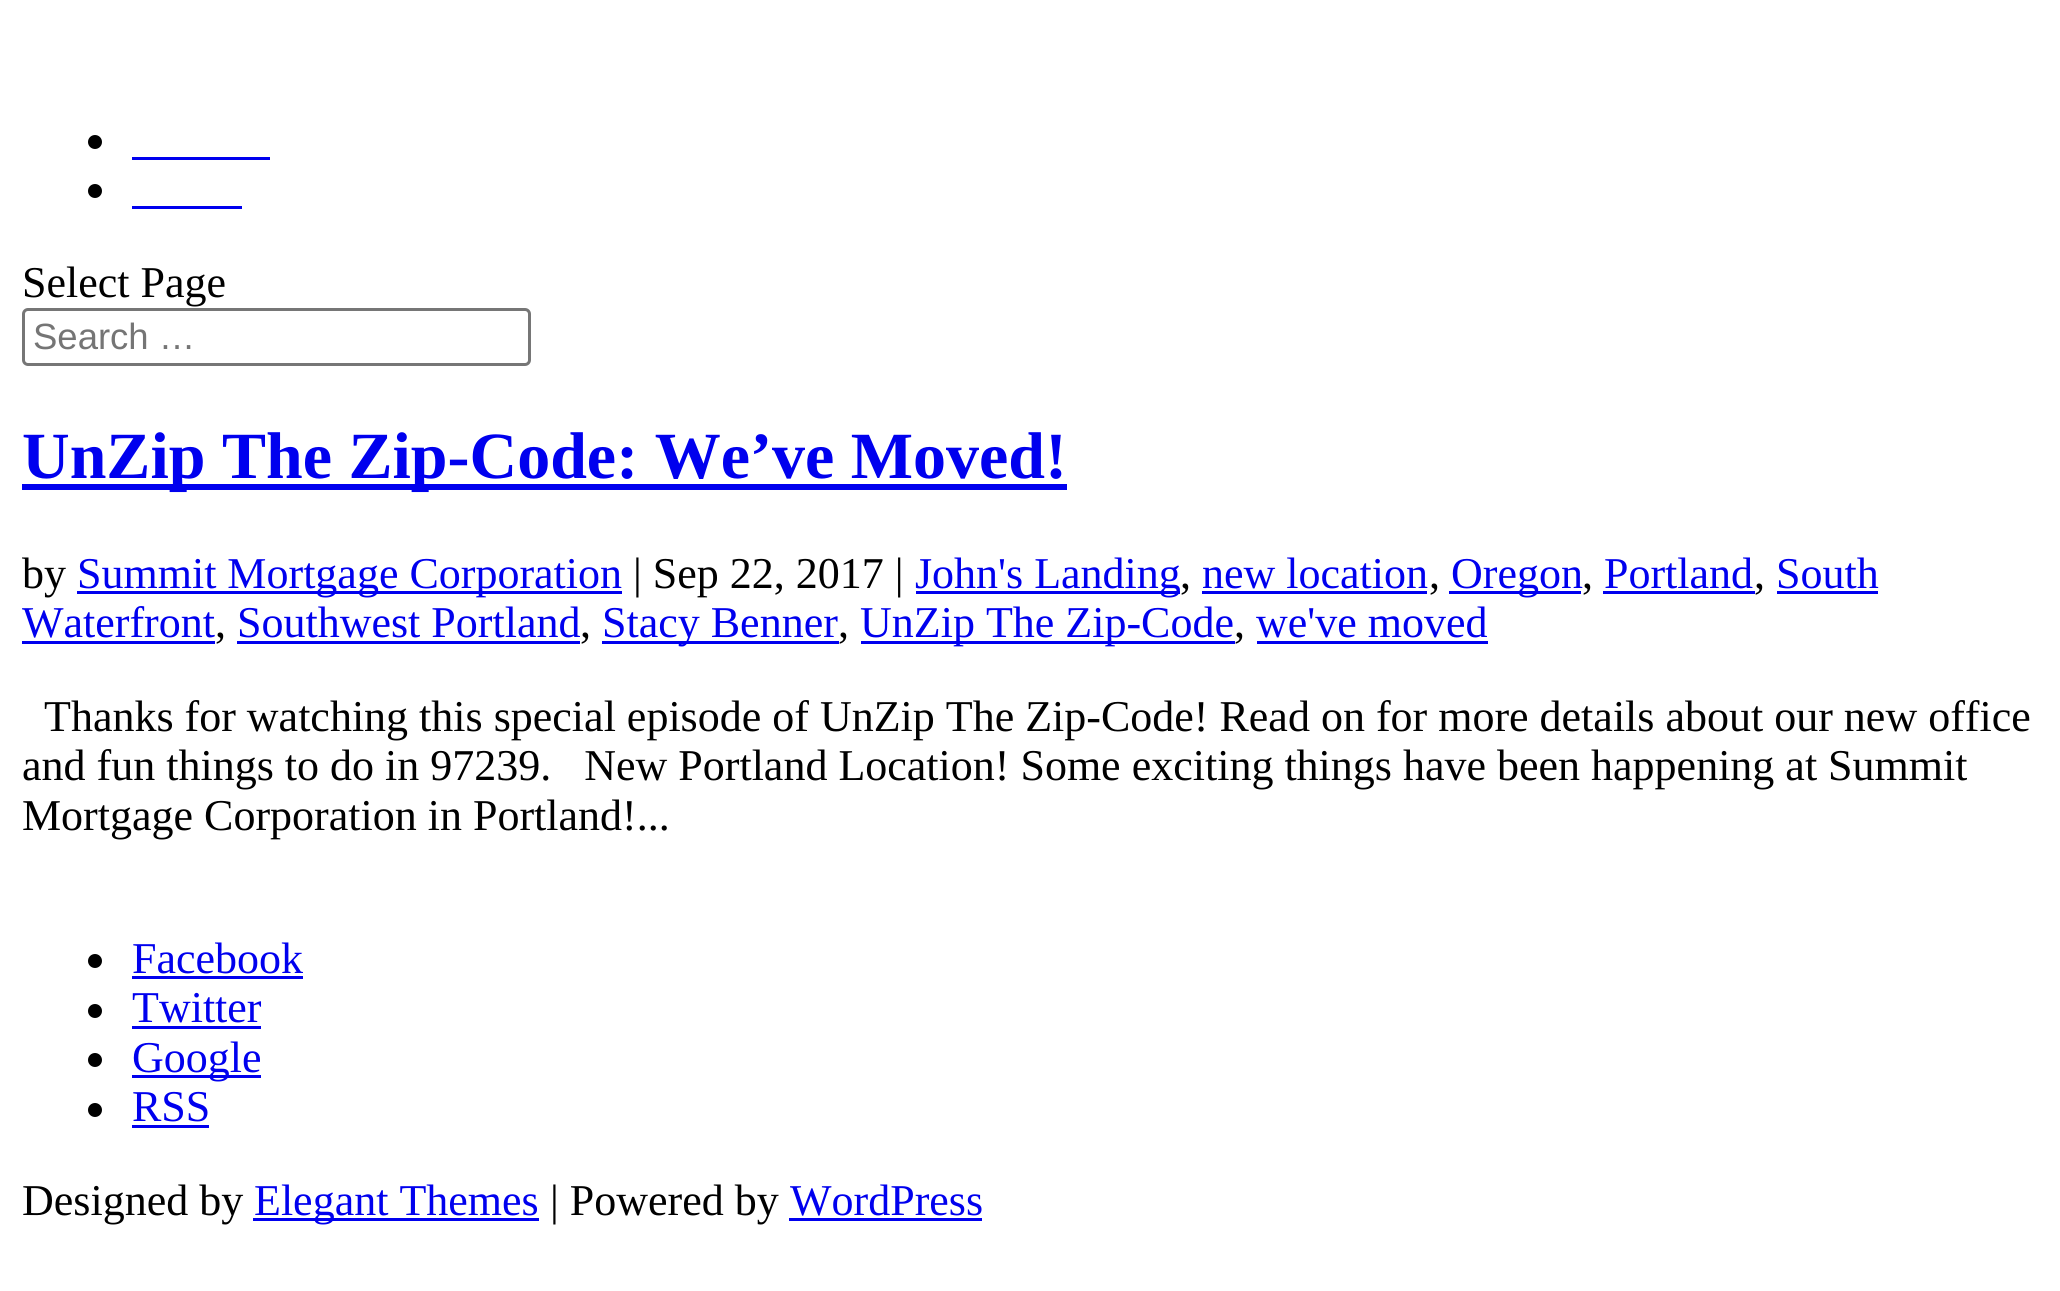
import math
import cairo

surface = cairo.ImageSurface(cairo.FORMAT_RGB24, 2060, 1291)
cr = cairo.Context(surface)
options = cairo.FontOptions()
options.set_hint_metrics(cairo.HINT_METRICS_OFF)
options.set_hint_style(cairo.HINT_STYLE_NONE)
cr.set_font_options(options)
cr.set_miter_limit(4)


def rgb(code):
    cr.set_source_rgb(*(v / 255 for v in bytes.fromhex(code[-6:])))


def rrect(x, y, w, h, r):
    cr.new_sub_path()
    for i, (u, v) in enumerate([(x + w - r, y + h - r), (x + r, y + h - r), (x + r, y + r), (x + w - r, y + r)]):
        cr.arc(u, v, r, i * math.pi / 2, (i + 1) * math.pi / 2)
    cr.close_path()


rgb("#ffffff")
cr.paint()
rgb("#000000")
cr.arc(95, 142, 7, 0, 2 * math.pi)
cr.fill()
rgb("#0000ee")
cr.rectangle(132, 157, 138, 3)
cr.fill()
rgb("#000000")
cr.arc(95, 191, 7, 0, 2 * math.pi)
cr.fill()
rgb("#0000ee")
cr.rectangle(132, 206, 110, 3)
cr.fill()
rrect(23.5, 309.5, 506, 55, 4.5)
rgb("#767676")
cr.set_line_width(3)
cr.stroke()
for x, y, w, h, color in [
    (22, 484, 1045, 6, "#0000ee"),
    (77, 591, 545, 3, "#0000ee"),
    (916, 591, 264, 3, "#0000ee"),
    (1202, 591, 225, 3, "#0000ee"),
    (1449, 591, 132, 3, "#0000ee"),
    (1603, 591, 152, 3, "#0000ee"),
    (1777, 591, 101, 3, "#0000ee"),
    (22, 641, 193, 3, "#0000ee"),
    (237, 641, 343, 3, "#0000ee"),
    (602, 641, 237, 3, "#0000ee"),
    (861, 641, 374, 3, "#0000ee"),
    (1257, 641, 231, 3, "#0000ee"),
]:
    rgb(color)
    cr.rectangle(x, y, w, h)
    cr.fill()
rgb("#000000")
cr.arc(95, 961, 7, 0, 2 * math.pi)
cr.fill()
rgb("#0000ee")
cr.rectangle(132, 976, 171, 3)
cr.fill()
rgb("#000000")
cr.arc(95, 1011, 7, 0, 2 * math.pi)
cr.fill()
rgb("#0000ee")
cr.rectangle(132, 1026, 129, 3)
cr.fill()
rgb("#000000")
cr.arc(95, 1060, 7, 0, 2 * math.pi)
cr.fill()
rgb("#0000ee")
cr.rectangle(132, 1075, 129, 3)
cr.fill()
rgb("#000000")
cr.arc(95, 1110, 7, 0, 2 * math.pi)
cr.fill()
for x, y, w, h, color in [
    (132, 1125, 77, 3, "#0000ee"),
    (253, 1218, 286, 3, "#0000ee"),
    (789, 1218, 193, 3, "#0000ee"),
]:
    rgb(color)
    cr.rectangle(x, y, w, h)
    cr.fill()
cr.select_font_face("Liberation Serif")
cr.set_font_size(44)
rgb("#000000")
cr.move_to(22, 297)
cr.show_text("Select Page")
cr.select_font_face("Liberation Sans")
cr.set_font_size(36.5)
rgb("#757575")
cr.move_to(33, 349)
cr.show_text("Search …")
cr.select_font_face("Liberation Serif", cairo.FONT_SLANT_NORMAL, cairo.FONT_WEIGHT_BOLD)
cr.set_font_size(66)
rgb("#0000ee")
cr.move_to(22, 478)
cr.show_text("UnZip The Zip-Code: We’ve Moved!")
cr.select_font_face("Liberation Serif")
cr.set_font_size(44)
rgb("#000000")
cr.move_to(22, 588)
cr.show_text("by")
rgb("#0000ee")
cr.move_to(77, 588)
cr.show_text("Summit Mortgage Corporation")
rgb("#000000")
cr.move_to(633, 588)
cr.show_text("| Sep 22, 2017 |")
rgb("#0000ee")
cr.move_to(915, 588)
cr.show_text("John's Landing")
rgb("#000000")
cr.move_to(1180, 588)
cr.show_text(",")
rgb("#0000ee")
cr.move_to(1202, 588)
cr.show_text("new location")
rgb("#000000")
cr.move_to(1429, 588)
cr.show_text(",")
rgb("#0000ee")
cr.move_to(1451, 588)
cr.show_text("Oregon")
rgb("#000000")
cr.move_to(1582, 588)
cr.show_text(",")
rgb("#0000ee")
cr.move_to(1604, 588)
cr.show_text("Portland")
rgb("#000000")
cr.move_to(1754, 588)
cr.show_text(",")
rgb("#0000ee")
cr.move_to(1776, 588)
cr.show_text("South")
cr.move_to(22, 637)
cr.show_text("Waterfront")
rgb("#000000")
cr.move_to(215, 637)
cr.show_text(",")
rgb("#0000ee")
cr.move_to(237, 637)
cr.show_text("Southwest Portland")
rgb("#000000")
cr.move_to(580, 637)
cr.show_text(",")
rgb("#0000ee")
cr.move_to(602, 637)
cr.show_text("Stacy Benner")
rgb("#000000")
cr.move_to(838, 637)
cr.show_text(",")
rgb("#0000ee")
cr.move_to(860, 637)
cr.show_text("UnZip The Zip-Code")
rgb("#000000")
cr.move_to(1234, 637)
cr.show_text(",")
rgb("#0000ee")
cr.move_to(1256, 637)
cr.show_text("we've moved")
rgb("#000000")
for x, y, s in [
    (44, 731, "Thanks for watching this special episode of UnZip The Zip-Code! Read on for more details about our new office"),
    (22, 780, "and fun things to do in 97239.   New Portland Location! Some exciting things have been happening at Summit"),
    (22, 830, "Mortgage Corporation in Portland!..."),
]:
    cr.move_to(x, y)
    cr.show_text(s)
rgb("#0000ee")
for x, y, s in [
    (132, 973, "Facebook"),
    (132, 1022, "Twitter"),
    (132, 1072, "Google"),
    (132, 1121, "RSS"),
]:
    cr.move_to(x, y)
    cr.show_text(s)
rgb("#000000")
cr.move_to(22, 1215)
cr.show_text("Designed by")
rgb("#0000ee")
cr.move_to(254, 1215)
cr.show_text("Elegant Themes")
rgb("#000000")
cr.move_to(550, 1215)
cr.show_text("| Powered by")
rgb("#0000ee")
cr.move_to(790, 1215)
cr.show_text("WordPress")
surface.write_to_png("page.png")
